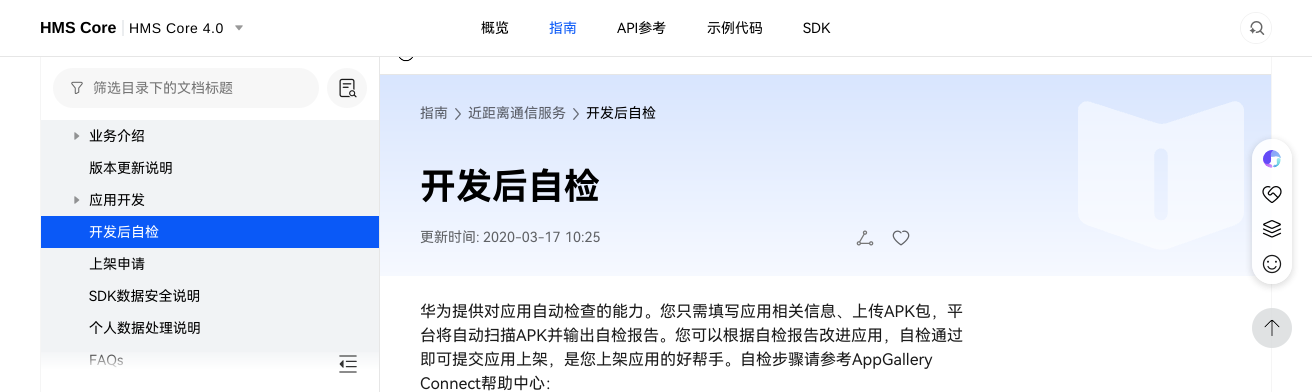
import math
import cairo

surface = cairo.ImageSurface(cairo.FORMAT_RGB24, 1312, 392)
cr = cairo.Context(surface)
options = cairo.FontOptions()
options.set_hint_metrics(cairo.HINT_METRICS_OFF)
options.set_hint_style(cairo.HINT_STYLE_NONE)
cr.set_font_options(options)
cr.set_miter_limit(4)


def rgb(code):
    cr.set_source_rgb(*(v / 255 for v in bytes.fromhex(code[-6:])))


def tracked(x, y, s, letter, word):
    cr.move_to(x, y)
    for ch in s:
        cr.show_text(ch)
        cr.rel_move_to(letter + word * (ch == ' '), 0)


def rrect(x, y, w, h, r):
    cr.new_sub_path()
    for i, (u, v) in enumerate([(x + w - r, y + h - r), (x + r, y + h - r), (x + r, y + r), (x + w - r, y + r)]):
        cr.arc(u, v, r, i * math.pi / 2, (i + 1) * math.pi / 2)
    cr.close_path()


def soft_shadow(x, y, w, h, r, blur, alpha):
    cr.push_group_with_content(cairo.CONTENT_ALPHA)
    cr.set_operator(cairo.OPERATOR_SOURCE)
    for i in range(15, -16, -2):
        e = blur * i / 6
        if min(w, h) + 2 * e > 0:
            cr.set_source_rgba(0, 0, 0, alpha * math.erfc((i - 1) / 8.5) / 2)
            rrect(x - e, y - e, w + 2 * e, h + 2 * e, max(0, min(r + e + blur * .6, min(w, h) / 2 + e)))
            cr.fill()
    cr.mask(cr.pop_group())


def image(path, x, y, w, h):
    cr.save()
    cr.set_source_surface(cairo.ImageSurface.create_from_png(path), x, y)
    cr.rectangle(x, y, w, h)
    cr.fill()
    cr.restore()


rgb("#ffffff")
cr.paint()
rgb("#e6e6e6")
cr.rectangle(0, 56, 1312, 1)
cr.fill()
rgb("#ebedef")
cr.rectangle(122, 20, 2, 16)
cr.fill()
image("img/1.png", 235, 25, 8, 6)
cr.arc(1256, 28, 15.5, 0, 2 * math.pi)
rgb("#f2f2f2")
cr.set_line_width(1)
cr.stroke()
rgb("#ffffff")
cr.arc(1256, 28, 15, 0, 2 * math.pi)
cr.fill()
image("img/2.png", 1249, 21, 16, 14)
rgb("#e6e6e6")
cr.rectangle(379, 57, 1, 335)
cr.fill()
rgb("#f5f5f5")
cr.rectangle(40, 57, 1, 335)
cr.fill()
rgb("#f7f7f7")
rrect(53, 68, 266, 40, 20)
cr.fill()
image("img/3.png", 71, 81, 12, 13)
cr.arc(347, 88, 20, 0, 2 * math.pi)
cr.fill()
image("img/4.png", 339, 78, 18, 20)
rgb("#f1f3f5")
cr.rectangle(41, 120, 338, 96)
cr.fill()
image("img/5.png", 74, 132, 6, 8)
image("img/5.png", 74, 196, 6, 8)
for x, y, w, h, color in [
    (41, 216, 338, 32, "#0a59f7"),
    (41, 248, 338, 122, "#f1f3f5"),
    (1271, 57, 1, 335, "#f5f5f5"),
    (380, 74, 891, 1, "#e6e6e6"),
]:
    rgb(color)
    cr.rectangle(x, y, w, h)
    cr.fill()
image("img/7.png", 399, 57, 14, 5)
gradient = cairo.LinearGradient(826, 75, 826, 276)
gradient.add_color_stop_rgba(0, 0.847, 0.898, 0.996, 1)
gradient.add_color_stop_rgba(1, 0.965, 0.976, 1, 1)
cr.set_source(gradient)
cr.rectangle(380, 75, 891, 201)
cr.fill()
image("img/8.png", 455, 108, 6, 12)
image("img/8.png", 573, 108, 6, 12)
image("img/9.png", 856, 230, 18, 16)
image("img/10.png", 892, 230, 18, 16)
image("img/11.png", 1078, 101, 166, 149)
cr.save()
cr.set_fill_rule(cairo.FILL_RULE_EVEN_ODD)
cr.new_path()
cr.move_to(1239, 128)
cr.line_to(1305, 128)
cr.line_to(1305, 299)
cr.line_to(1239, 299)
cr.close_path()
cr.move_to(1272, 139)
cr.curve_to(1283, 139, 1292, 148, 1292, 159)
cr.line_to(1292, 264)
cr.curve_to(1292, 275, 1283, 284, 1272, 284)
cr.curve_to(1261, 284, 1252, 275, 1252, 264)
cr.line_to(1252, 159)
cr.curve_to(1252, 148, 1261, 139, 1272, 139)
cr.close_path()
cr.clip()
rgb("#000000")
soft_shadow(1252, 141, 40, 145, 20, 4, 0.16)
cr.restore()
cr.set_source_rgba(1, 1, 1, 0.9)
rrect(1252, 139, 40, 145, 20)
cr.fill()
image("img/12.png", 1263, 150, 18, 18)
image("img/13.png", 1262, 186, 20, 17)
image("img/14.png", 1262, 220, 20, 18)
image("img/15.png", 1262, 254, 20, 20)
cr.set_source_rgba(0.847, 0.855, 0.863, 0.8)
cr.arc(1272, 328, 20, 0, 2 * math.pi)
cr.fill()
image("img/16.png", 1264, 319, 16, 17)
cr.select_font_face("Liberation Sans", cairo.FONT_SLANT_NORMAL, cairo.FONT_WEIGHT_BOLD)
cr.set_font_size(16)
rgb("#000000")
cr.move_to(40, 33)
cr.show_text("HMS Core")
cr.select_font_face("Liberation Sans")
cr.set_font_size(14)
tracked(129, 33, "HMS Core 4.0", 0.5, 0)
cr.select_font_face("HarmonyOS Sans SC")
cr.move_to(481, 33)
cr.show_text("概览")
rgb("#0a59f7")
cr.move_to(549, 33)
cr.show_text("指南")
rgb("#000000")
for x, y, s in [
    (617, 33, "API参考"),
    (707, 33, "示例代码"),
    (803, 33, "SDK"),
]:
    cr.move_to(x, y)
    cr.show_text(s)
rgb("#757575")
cr.move_to(93, 93)
cr.show_text("筛选目录下的文档标题")
rgb("#000000")
for x, y, s in [
    (89, 141, "业务介绍"),
    (89, 173, "版本更新说明"),
    (89, 205, "应用开发"),
]:
    cr.move_to(x, y)
    cr.show_text(s)
rgb("#ffffff")
cr.move_to(89, 237)
cr.show_text("开发后自检")
rgb("#000000")
for x, y, s in [
    (89, 269, "上架申请"),
    (89, 301, "SDK数据安全说明"),
    (89, 333, "个人数据处理说明"),
    (89, 365, "FAQs"),
]:
    cr.move_to(x, y)
    cr.show_text(s)
gradient = cairo.LinearGradient(210, 348, 210, 392)
gradient.add_color_stop_rgba(0, 1, 1, 1, 0)
gradient.add_color_stop_rgba(0.5, 1, 1, 1, 1)
cr.set_source(gradient)
cr.rectangle(41, 352, 338, 18)
cr.fill()
image("img/6.png", 339, 355, 18, 18)
rgb("#595d66")
cr.move_to(420, 118)
cr.show_text("指南")
cr.move_to(468, 118)
cr.show_text("近距离通信服务")
rgb("#000000")
cr.move_to(586, 118)
cr.show_text("开发后自检")
cr.select_font_face("HarmonyOS Sans SC", cairo.FONT_SLANT_NORMAL, cairo.FONT_WEIGHT_BOLD)
cr.set_font_size(36)
cr.move_to(420, 199)
cr.show_text("开发后自检")
cr.select_font_face("HarmonyOS Sans SC")
cr.set_font_size(14)
rgb("#606266")
for x, y, s in [
    (420, 242, "更新时间:"),
    (483, 242, "2020-03-17"),
    (565, 242, "10:25"),
]:
    cr.move_to(x, y)
    cr.show_text(s)
cr.set_font_size(16)
rgb("#1a1a1a")
for x, y, s in [
    (420, 317, "华为提供对应用自动检查的能力。您只需填写应用相关信息、上传APK包，平"),
    (420, 341, "台将自动扫描APK并输出自检报告。您可以根据自检报告改进应用，自检通过"),
    (420, 365, "即可提交应用上架，是您上架应用的好帮手。自检步骤请参考AppGallery"),
    (420, 389, "Connect帮助中心："),
]:
    cr.move_to(x, y)
    cr.show_text(s)
surface.write_to_png("page.png")
